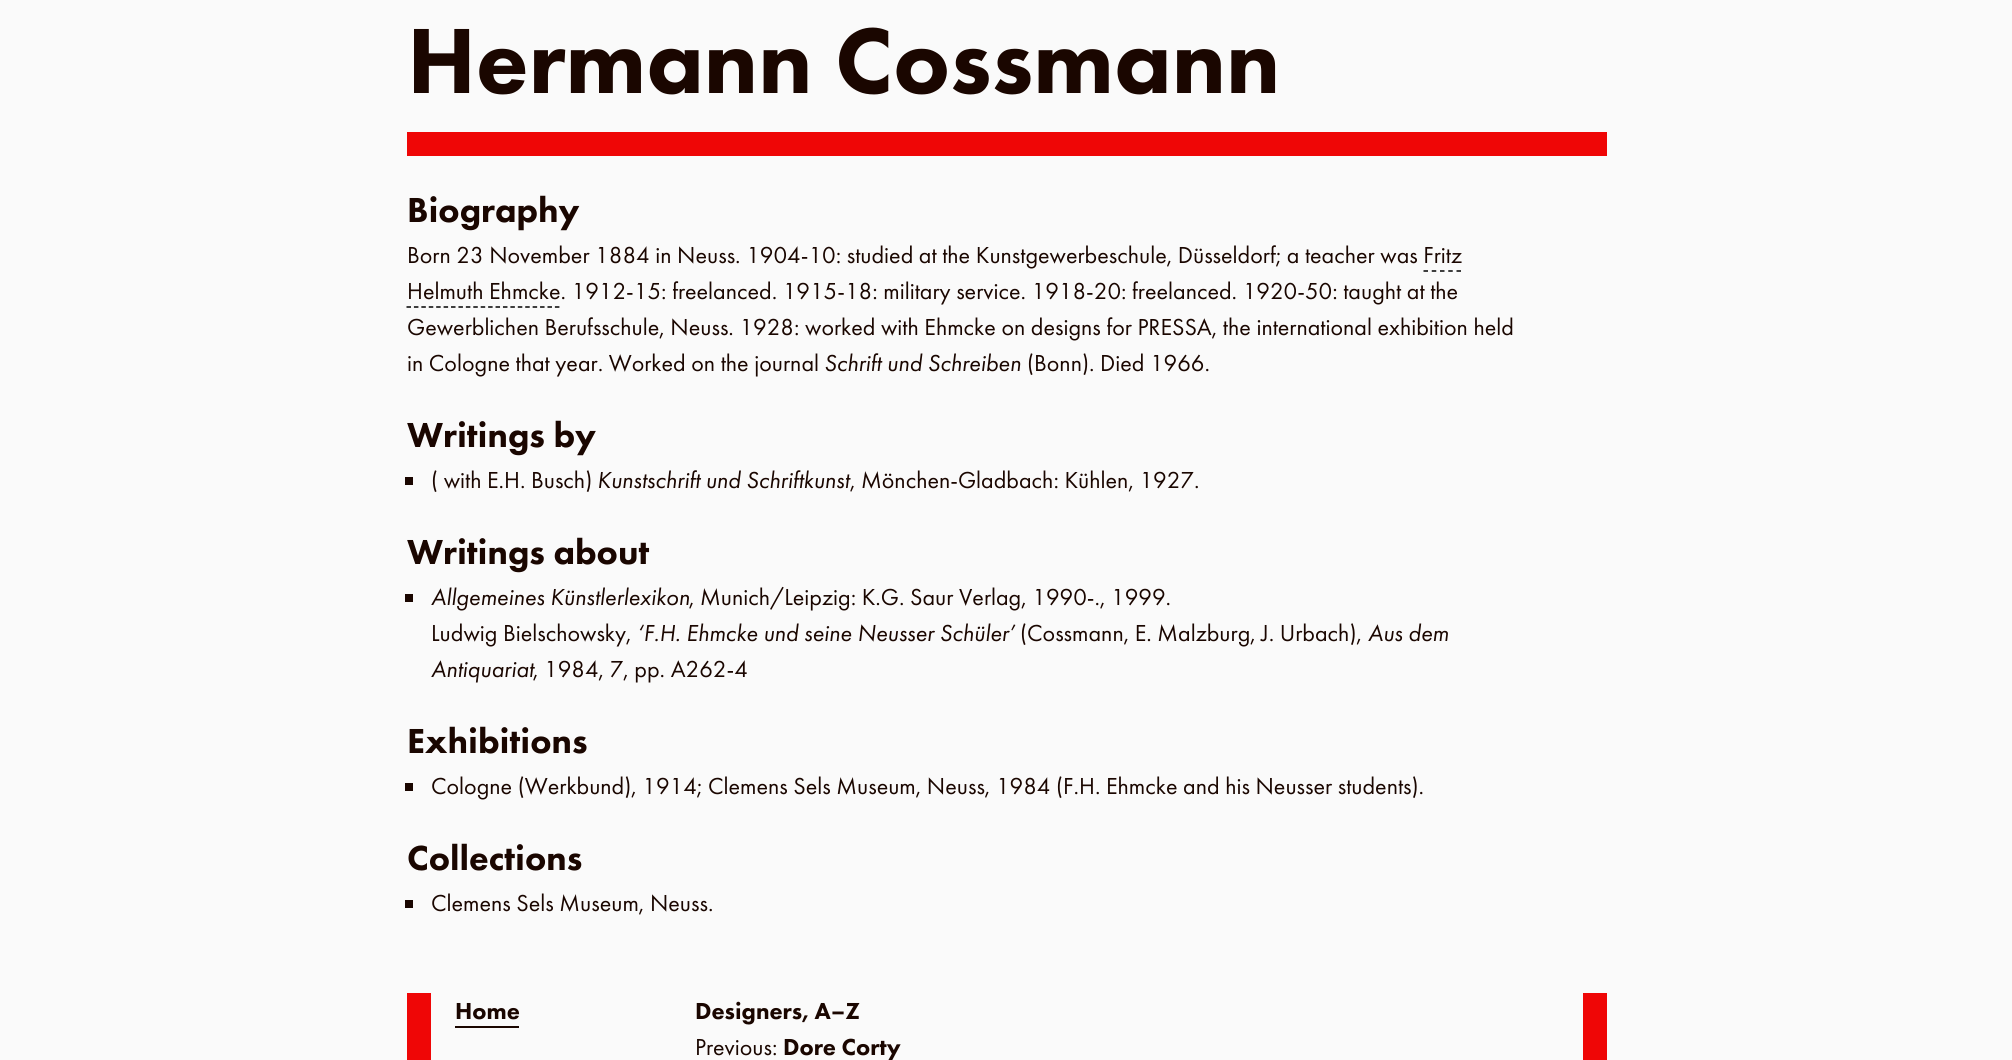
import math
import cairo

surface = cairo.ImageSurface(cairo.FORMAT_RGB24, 2012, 1060)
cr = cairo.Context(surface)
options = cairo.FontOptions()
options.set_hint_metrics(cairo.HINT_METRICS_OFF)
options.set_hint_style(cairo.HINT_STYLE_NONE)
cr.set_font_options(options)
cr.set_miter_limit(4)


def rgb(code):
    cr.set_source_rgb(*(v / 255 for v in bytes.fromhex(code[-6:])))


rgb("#fafafa")
cr.paint()
rgb("#ef0606")
cr.rectangle(407, 132, 1200, 24)
cr.fill()
cr.new_path()
cr.move_to(1423.5, 271)
cr.line_to(1461, 271)
rgb("#000000")
cr.set_line_width(1.5)
cr.set_dash([4.5, 3.75])
cr.stroke()
cr.new_path()
cr.move_to(406.5, 307)
cr.line_to(559.5, 307)
cr.set_dash([4.5, 2.92])
cr.stroke()
for x, y, w, h, color in [
    (405, 477, 8, 8, "#1a0600"),
    (405, 594, 8, 8, "#1a0600"),
    (405, 783, 8, 8, "#1a0600"),
    (405, 900, 8, 8, "#1a0600"),
    (1583, 993, 24, 67, "#ef0606"),
    (407, 993, 24, 67, "#ef0606"),
    (455, 1026, 64, 2, "#1a0600"),
]:
    rgb(color)
    cr.rectangle(x, y, w, h)
    cr.fill()
cr.select_font_face("Futura PT Black")
cr.set_font_size(96)
cr.move_to(407, 93)
cr.show_text("Hermann Cossmann")
cr.set_font_size(36)
cr.move_to(407, 222)
cr.show_text("Biography")
cr.select_font_face("Futura PT")
cr.set_font_size(24)
for x, y, s in [
    (407, 263, "Born 23 November 1884 in Neuss. 1904-10: studied at the Kunstgewerbeschule, Düsseldorf; a teacher was Fritz"),
    (407, 299, "Helmuth Ehmcke. 1912-15: freelanced. 1915-18: military service. 1918-20: freelanced. 1920-50: taught at the"),
    (407, 335, "Gewerblichen Berufsschule, Neuss. 1928: worked with Ehmcke on designs for PRESSA, the international exhibition held"),
    (407, 371, "in Cologne that year. Worked on the journal"),
]:
    cr.move_to(x, y)
    cr.show_text(s)
cr.select_font_face("Futura PT", cairo.FONT_SLANT_ITALIC)
cr.move_to(824, 371)
cr.show_text("Schrift und Schreiben")
cr.select_font_face("Futura PT")
cr.move_to(1027, 371)
cr.show_text("(Bonn). Died 1966.")
cr.select_font_face("Futura PT Black")
cr.set_font_size(36)
cr.move_to(407, 447)
cr.show_text("Writings by")
cr.select_font_face("Futura PT")
cr.set_font_size(24)
cr.move_to(431, 488)
cr.show_text("( with E.H. Busch)")
cr.select_font_face("Futura PT", cairo.FONT_SLANT_ITALIC)
cr.move_to(597, 488)
cr.show_text("Kunstschrift und Schriftkunst")
cr.select_font_face("Futura PT")
cr.move_to(850, 488)
cr.show_text(", Mönchen-Gladbach: Kühlen, 1927.")
cr.select_font_face("Futura PT Black")
cr.set_font_size(36)
cr.move_to(407, 564)
cr.show_text("Writings about")
cr.select_font_face("Futura PT", cairo.FONT_SLANT_ITALIC)
cr.set_font_size(24)
cr.move_to(431, 605)
cr.show_text("Allgemeines Künstlerlexikon")
cr.select_font_face("Futura PT")
cr.move_to(689, 605)
cr.show_text(", Munich/Leipzig: K.G. Saur Verlag, 1990-., 1999.")
cr.move_to(431, 641)
cr.show_text("Ludwig Bielschowsky,")
cr.select_font_face("Futura PT", cairo.FONT_SLANT_ITALIC)
cr.move_to(637, 641)
cr.show_text("‘F.H. Ehmcke und seine Neusser Schüler’")
cr.select_font_face("Futura PT")
cr.move_to(1020, 641)
cr.show_text("(Cossmann, E. Malzburg, J. Urbach),")
cr.select_font_face("Futura PT", cairo.FONT_SLANT_ITALIC)
cr.move_to(1368, 641)
cr.show_text("Aus dem")
cr.move_to(431, 677)
cr.show_text("Antiquariat")
cr.select_font_face("Futura PT")
cr.move_to(533, 677)
cr.show_text(", 1984, 7, pp. A262-4")
cr.select_font_face("Futura PT Black")
cr.set_font_size(36)
cr.move_to(407, 753)
cr.show_text("Exhibitions")
cr.select_font_face("Futura PT")
cr.set_font_size(24)
cr.move_to(431, 794)
cr.show_text("Cologne (Werkbund), 1914; Clemens Sels Museum, Neuss, 1984 (F.H. Ehmcke and his Neusser students).")
cr.select_font_face("Futura PT Black")
cr.set_font_size(36)
cr.move_to(407, 870)
cr.show_text("Collections")
cr.select_font_face("Futura PT")
cr.set_font_size(24)
cr.move_to(431, 911)
cr.show_text("Clemens Sels Museum, Neuss.")
cr.select_font_face("Futura PT Black")
cr.move_to(455, 1019)
cr.show_text("Home")
cr.move_to(695, 1019)
cr.show_text("Designers, A–Z")
cr.select_font_face("Futura PT")
cr.move_to(695, 1055)
cr.show_text("Previous:")
cr.select_font_face("Futura PT Black")
cr.move_to(783, 1055)
cr.show_text("Dore Corty")
surface.write_to_png("page.png")
